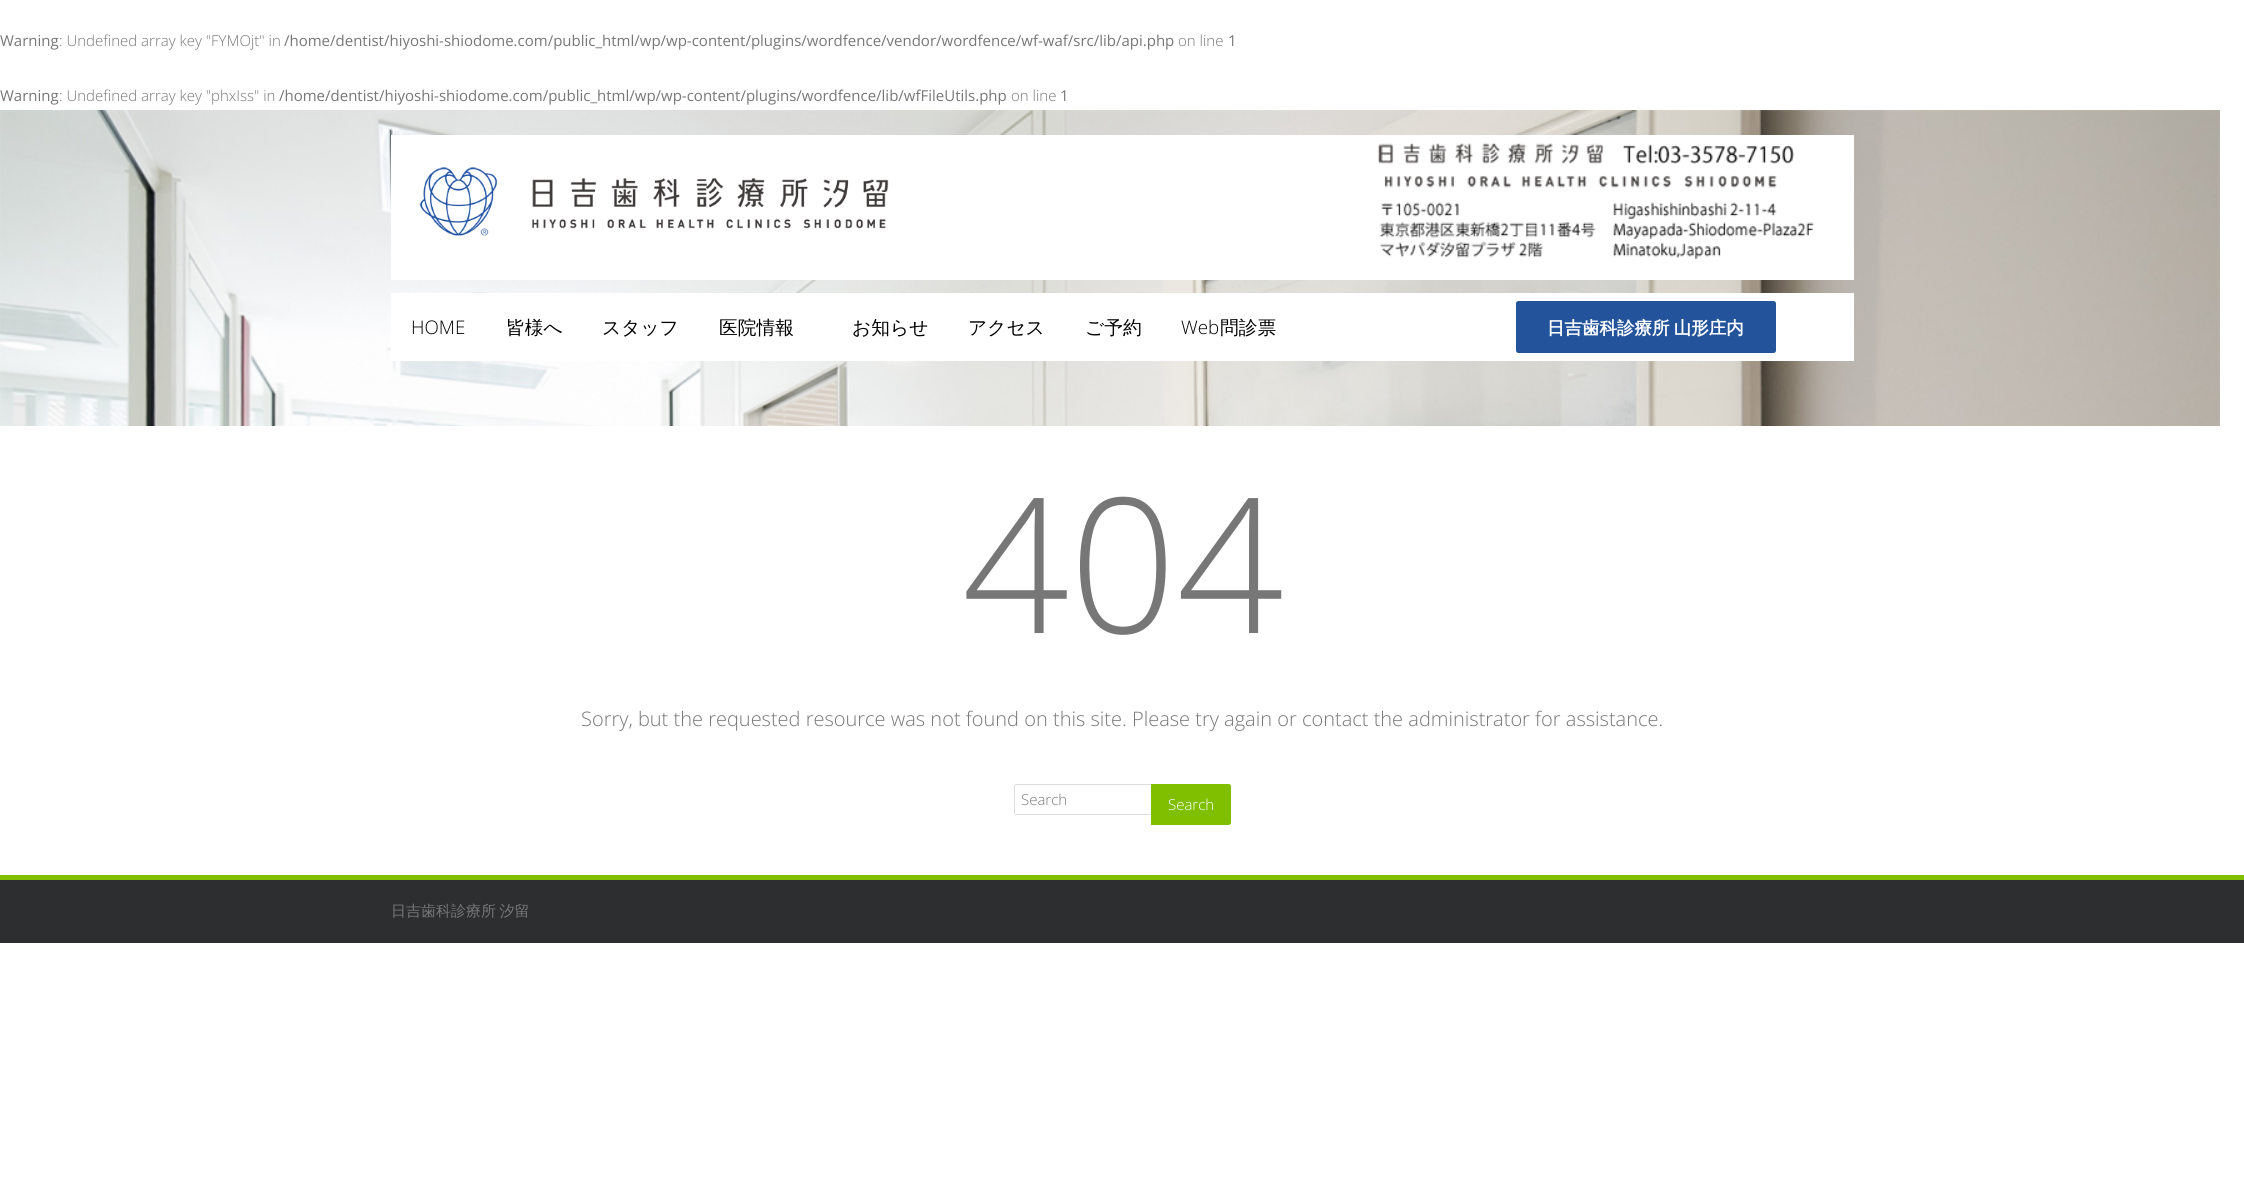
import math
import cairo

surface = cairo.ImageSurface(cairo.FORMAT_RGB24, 2244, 1187)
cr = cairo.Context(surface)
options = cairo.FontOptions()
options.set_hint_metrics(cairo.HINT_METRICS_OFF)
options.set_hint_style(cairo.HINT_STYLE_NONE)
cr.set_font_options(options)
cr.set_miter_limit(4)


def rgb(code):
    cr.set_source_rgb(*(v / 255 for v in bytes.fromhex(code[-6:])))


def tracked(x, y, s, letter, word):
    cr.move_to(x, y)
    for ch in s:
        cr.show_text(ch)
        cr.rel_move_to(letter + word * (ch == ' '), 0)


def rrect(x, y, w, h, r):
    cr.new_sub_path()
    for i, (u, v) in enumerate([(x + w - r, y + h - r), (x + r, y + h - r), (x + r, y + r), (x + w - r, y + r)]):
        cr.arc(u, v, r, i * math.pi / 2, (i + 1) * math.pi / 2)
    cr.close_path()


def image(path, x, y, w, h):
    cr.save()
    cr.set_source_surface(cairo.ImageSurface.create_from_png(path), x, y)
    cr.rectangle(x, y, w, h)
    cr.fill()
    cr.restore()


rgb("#ffffff")
cr.paint()
image("img/1.png", 0, 110, 2220, 316)
rgb("#ffffff")
cr.rectangle(391, 135, 1463, 145)
cr.fill()
image("img/2.png", 419, 167, 470, 69)
image("img/3.png", 1378, 143, 436, 116)
cr.rectangle(391, 293, 1463, 68)
cr.fill()
rgb("#23539a")
rrect(1516, 301, 260, 52, 2.5)
cr.fill()
for x, y, w, h, color in [
    (1015, 784, 136, 1, "#dddddd"),
    (1015, 814, 136, 1, "#dddddd"),
    (1014, 785, 1, 29, "#dddddd"),
]:
    rgb(color)
    cr.rectangle(x, y, w, h)
    cr.fill()
rgb("#7fbf00")
cr.new_path()
cr.move_to(1151, 784)
cr.line_to(1228.5, 784)
cr.curve_to(1230, 784, 1231, 785, 1231, 786.5)
cr.line_to(1231, 822.5)
cr.curve_to(1231, 824, 1230, 825, 1228.5, 825)
cr.line_to(1151, 825)
cr.close_path()
cr.fill()
cr.rectangle(0, 875, 2244, 5)
cr.fill()
rgb("#2d2e2f")
cr.rectangle(0, 880, 2244, 63)
cr.fill()
cr.select_font_face("Open Sans")
cr.set_font_size(15)
rgb("#777777")
cr.move_to(0, 46)
cr.show_text("Warning")
cr.select_font_face("Open Sans Light")
cr.move_to(59, 46)
cr.show_text(": Undefined array key \"FYMOjt\" in")
cr.select_font_face("Open Sans")
cr.move_to(284, 46)
cr.show_text("/home/dentist/hiyoshi-shiodome.com/public_html/wp/wp-content/plugins/wordfence/vendor/wordfence/wf-waf/src/lib/api.php")
cr.select_font_face("Open Sans Light")
cr.move_to(1178, 46)
cr.show_text("on line")
cr.select_font_face("Open Sans")
cr.move_to(1228, 46)
cr.show_text("1")
cr.move_to(0, 101)
cr.show_text("Warning")
cr.select_font_face("Open Sans Light")
cr.move_to(59, 101)
cr.show_text(": Undefined array key \"phxIss\" in")
cr.select_font_face("Open Sans")
cr.move_to(279, 101)
cr.show_text("/home/dentist/hiyoshi-shiodome.com/public_html/wp/wp-content/plugins/wordfence/lib/wfFileUtils.php")
cr.select_font_face("Open Sans Light")
cr.move_to(1011, 101)
cr.show_text("on line")
cr.select_font_face("Open Sans")
cr.move_to(1060, 101)
cr.show_text("1")
cr.select_font_face("Open Sans Light")
cr.set_font_size(18.75)
rgb("#000000")
cr.move_to(411, 334)
cr.show_text("HOME")
cr.select_font_face("WenQuanYi Zen Hei Medium")
for x, y, s in [
    (506, 334, "皆様へ"),
    (602, 334, "スタッフ"),
    (719, 334, "医院情報"),
    (852, 334, "お知らせ"),
    (968, 334, "アクセス"),
    (1085, 334, "ご予約"),
]:
    cr.move_to(x, y)
    cr.show_text(s)
cr.select_font_face("Open Sans Light")
cr.move_to(1181, 334)
cr.show_text("Web")
cr.select_font_face("WenQuanYi Zen Hei Medium")
cr.move_to(1220, 334)
cr.show_text("問診票")
cr.select_font_face("WenQuanYi Zen Hei", cairo.FONT_SLANT_NORMAL, cairo.FONT_WEIGHT_BOLD)
cr.set_font_size(17.5)
rgb("#ffffff")
tracked(1547, 334, "日吉歯科診療所 山形庄内", 0, -1)
cr.select_font_face("Open Sans Light")
cr.set_font_size(188)
rgb("#777777")
cr.move_to(962, 633)
cr.show_text("404")
cr.set_font_size(20)
cr.move_to(581, 726)
cr.show_text("Sorry, but the requested resource was not found on this site. Please try again or contact the administrator for assistance.")
cr.set_font_size(15)
cr.move_to(1021, 805)
cr.show_text("Search")
rgb("#ffffff")
cr.move_to(1168, 810)
cr.show_text("Search")
cr.select_font_face("WenQuanYi Zen Hei Medium")
rgb("#777777")
tracked(391, 916, "日吉歯科診療所 汐留", 0, -1)
surface.write_to_png("page.png")
